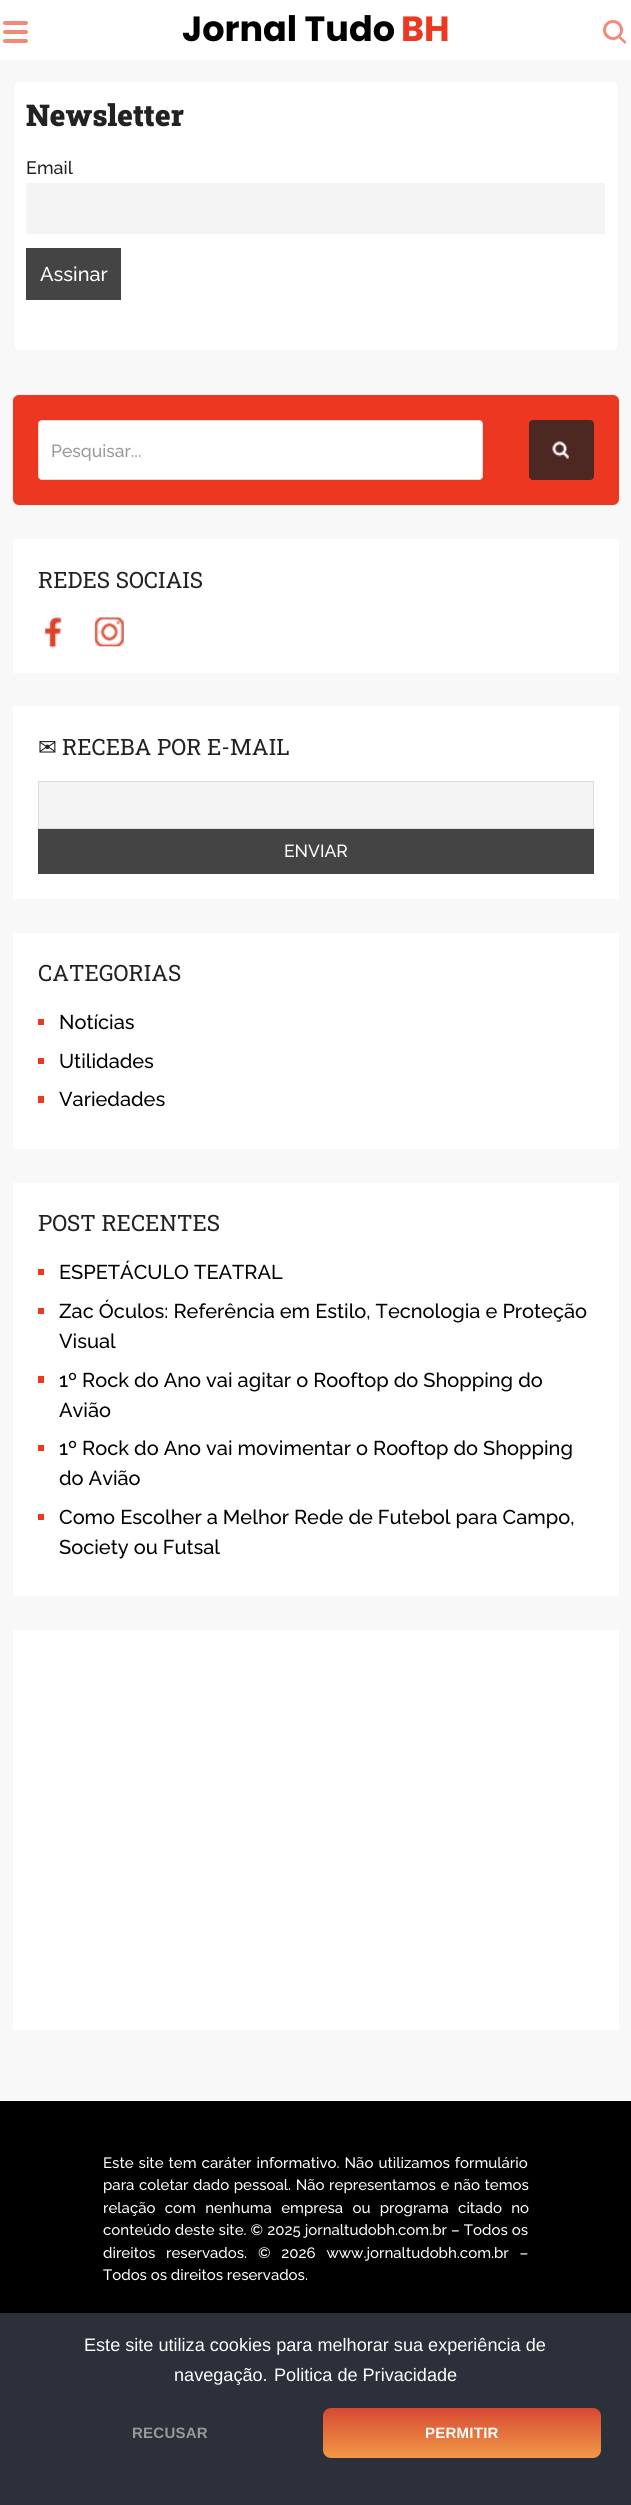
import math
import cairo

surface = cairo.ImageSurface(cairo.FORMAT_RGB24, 631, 2505)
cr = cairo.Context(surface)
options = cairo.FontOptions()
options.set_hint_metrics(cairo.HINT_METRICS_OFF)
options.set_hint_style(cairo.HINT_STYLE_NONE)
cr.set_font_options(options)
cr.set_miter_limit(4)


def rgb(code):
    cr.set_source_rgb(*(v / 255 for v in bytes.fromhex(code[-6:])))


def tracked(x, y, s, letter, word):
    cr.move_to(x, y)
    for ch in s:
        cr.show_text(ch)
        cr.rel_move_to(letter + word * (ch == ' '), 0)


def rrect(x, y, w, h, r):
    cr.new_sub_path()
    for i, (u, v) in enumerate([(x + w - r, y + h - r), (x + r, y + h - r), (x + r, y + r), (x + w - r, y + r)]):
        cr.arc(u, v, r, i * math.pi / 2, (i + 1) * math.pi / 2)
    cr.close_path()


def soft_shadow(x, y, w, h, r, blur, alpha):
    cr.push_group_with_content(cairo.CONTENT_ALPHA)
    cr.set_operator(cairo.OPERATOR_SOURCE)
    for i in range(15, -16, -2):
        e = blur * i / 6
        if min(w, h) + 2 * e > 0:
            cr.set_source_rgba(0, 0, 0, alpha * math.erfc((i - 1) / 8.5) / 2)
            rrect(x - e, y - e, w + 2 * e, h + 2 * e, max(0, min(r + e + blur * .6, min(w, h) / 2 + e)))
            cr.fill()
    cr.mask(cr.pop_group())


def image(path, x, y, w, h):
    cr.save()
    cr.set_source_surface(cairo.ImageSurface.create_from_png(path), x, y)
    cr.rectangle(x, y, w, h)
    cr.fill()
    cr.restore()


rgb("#f8f8f8")
cr.paint()
rgb("#ffffff")
cr.rectangle(0, 0, 631, 60)
cr.fill()
rgb("#f48879")
rrect(3, 21, 25, 4, 2)
cr.fill()
rrect(3, 30, 25, 4, 2)
cr.fill()
rrect(3, 39, 25, 4, 2)
cr.fill()
cr.new_path()
cr.move_to(618.5, 38)
cr.line_to(620, 36)
cr.line_to(626.5, 42)
cr.line_to(625, 44)
cr.close_path()
cr.fill()
cr.arc(613, 30, 8.5, 0, 2 * math.pi)
cr.set_line_width(3)
cr.stroke()
rgb("#323232")
soft_shadow(13, 81, 606, 270, 6, 0.5, 0.1)
rgb("#ffffff")
rrect(13.5, 81.5, 605, 269, 5.5)
cr.fill_preserve()
rgb("#f9f9f9")
cr.set_line_width(1)
cr.stroke()
rgb("#f4f4f4")
cr.rectangle(26, 183, 579, 51)
cr.fill()
rgb("#444444")
cr.rectangle(26, 248, 95, 52)
cr.fill()
rgb("#323232")
soft_shadow(13, 395, 606, 110, 6, 0.5, 0.1)
rgb("#ec3820")
rrect(13, 395, 606, 110, 6)
cr.fill()
rgb("#ffffff")
rrect(38.5, 420.5, 444, 59, 3.5)
cr.fill_preserve()
rgb("#dddddd")
cr.stroke()
rgb("#4d2722")
rrect(529, 420, 65, 60, 4)
cr.fill()
image("img/1.png", 552, 441, 17, 18)
rgb("#ffffff")
cr.rectangle(13, 539, 606, 134)
cr.fill()
image("img/2.png", 44, 617, 18, 31)
image("img/3.png", 94, 617, 30, 30)
cr.rectangle(13, 706, 606, 193)
cr.fill()
rgb("#f4f4f4")
cr.rectangle(38.5, 781.5, 555, 47)
cr.fill_preserve()
rgb("#dddddd")
cr.stroke()
for x, y, w, h, color in [
    (38, 829, 556, 45, "#444444"),
    (13, 933, 606, 216, "#ffffff"),
    (38, 1019, 6, 6, "#ec3820"),
    (38, 1058, 6, 6, "#ec3820"),
    (38, 1096, 6, 7, "#ec3820"),
    (13, 1183, 606, 413, "#ffffff"),
    (38, 1269, 6, 6, "#ec3820"),
    (38, 1308, 6, 6, "#ec3820"),
    (38, 1376, 6, 7, "#ec3820"),
    (38, 1445, 6, 6, "#ec3820"),
    (38, 1514, 6, 6, "#ec3820"),
    (13, 1630, 606, 400, "#ffffff"),
    (0, 2101, 631, 212, "#000000"),
    (0, 2313, 631, 192, "#2b303a"),
]:
    rgb(color)
    cr.rectangle(x, y, w, h)
    cr.fill()
gradient = cairo.LinearGradient(462, 2408, 462, 2458)
gradient.add_color_stop_rgba(0, 0.839, 0.286, 0.2, 1)
gradient.add_color_stop_rgba(1, 0.945, 0.6, 0.278, 1)
cr.set_source(gradient)
rrect(323, 2408, 278, 50, 8)
cr.fill()
cr.select_font_face("Poppins", cairo.FONT_SLANT_NORMAL, cairo.FONT_WEIGHT_BOLD)
cr.set_font_size(35)
rgb("#000000")
cr.move_to(182, 41)
cr.show_text("Jornal Tudo")
rgb("#ec3820")
cr.move_to(401, 41)
cr.show_text("BH")
cr.select_font_face("Roboto Slab Black")
cr.set_font_size(30)
rgb("#222222")
cr.move_to(26, 126)
cr.show_text("Newsletter")
cr.select_font_face("Raleway Thin")
cr.set_font_size(18)
cr.move_to(26, 174)
cr.show_text("Email")
cr.set_font_size(20)
rgb("#ffffff")
cr.move_to(40, 281)
cr.show_text("Assinar")
cr.set_font_size(17.5)
rgb("#999999")
cr.move_to(51, 457)
cr.show_text("Pesquisar...")
cr.select_font_face("Roboto Slab")
cr.set_font_size(22.5)
rgb("#222222")
cr.move_to(38, 588)
cr.show_text("REDES SOCIAIS")
cr.select_font_face("DejaVu Sans")
cr.move_to(38, 755)
cr.show_text("✉")
cr.select_font_face("Roboto Slab")
cr.move_to(62, 755)
cr.show_text("RECEBA POR E-MAIL")
cr.select_font_face("Raleway Thin")
cr.set_font_size(17.5)
rgb("#ffffff")
cr.move_to(284, 857)
cr.show_text("ENVIAR")
cr.select_font_face("Roboto Slab")
cr.set_font_size(22.5)
rgb("#222222")
cr.move_to(38, 981)
cr.show_text("CATEGORIAS")
cr.select_font_face("Raleway Thin")
cr.set_font_size(20)
rgb("#000000")
for x, y, s in [
    (59, 1029, "Notícias"),
    (59, 1068, "Utilidades"),
    (59, 1106, "Variedades"),
]:
    cr.move_to(x, y)
    cr.show_text(s)
cr.select_font_face("Roboto Slab")
cr.set_font_size(22.5)
rgb("#222222")
cr.move_to(38, 1231)
cr.show_text("POST RECENTES")
cr.select_font_face("Raleway Thin")
cr.set_font_size(20)
rgb("#000000")
for x, y, s in [
    (59, 1279, "ESPETÁCULO TEATRAL"),
    (59, 1318, "Zac Óculos: Referência em Estilo, Tecnologia e Proteção"),
    (59, 1348, "Visual"),
    (59, 1387, "1º Rock do Ano vai agitar o Rooftop do Shopping do"),
    (59, 1417, "Avião"),
    (59, 1455, "1º Rock do Ano vai movimentar o Rooftop do Shopping"),
    (59, 1485, "do Avião"),
    (59, 1524, "Como Escolher a Melhor Rede de Futebol para Campo,"),
    (59, 1554, "Society ou Futsal"),
]:
    cr.move_to(x, y)
    cr.show_text(s)
cr.set_font_size(15)
rgb("#ffffff")
tracked(103, 2168, "Este site tem caráter informativo. Não utilizamos formulário", 0, 1.25)
tracked(103, 2190, "para coletar dado pessoal. Não representamos e não temos", 0, 0.75)
tracked(103, 2213, "relação com nenhuma empresa ou programa citado no", 0, 5.5)
tracked(103, 2235, "conteúdo deste site. © 2025 jornaltudobh.com.br – Todos os", 0, 0.25)
tracked(103, 2258, "direitos reservados.", 0, 7)
tracked(258, 2258, "© 2026 www.jornaltudobh.com.br –", 0, 7)
cr.move_to(103, 2280)
cr.show_text("Todos os direitos reservados.")
cr.select_font_face("Liberation Sans")
cr.set_font_size(18.1)
for x, y, s in [
    (84, 2351, "Este site utiliza cookies para melhorar sua experiência de"),
    (174, 2381, "navegação."),
    (274, 2381, "Politica de Privacidade"),
]:
    cr.move_to(x, y)
    cr.show_text(s)
cr.select_font_face("Liberation Sans", cairo.FONT_SLANT_NORMAL, cairo.FONT_WEIGHT_BOLD)
cr.set_font_size(15)
rgb("#999999")
tracked(132, 2438, "RECUSAR", 0.25, 0)
rgb("#ffffff")
tracked(425, 2438, "PERMITIR", 0.25, 0)
surface.write_to_png("page.png")
